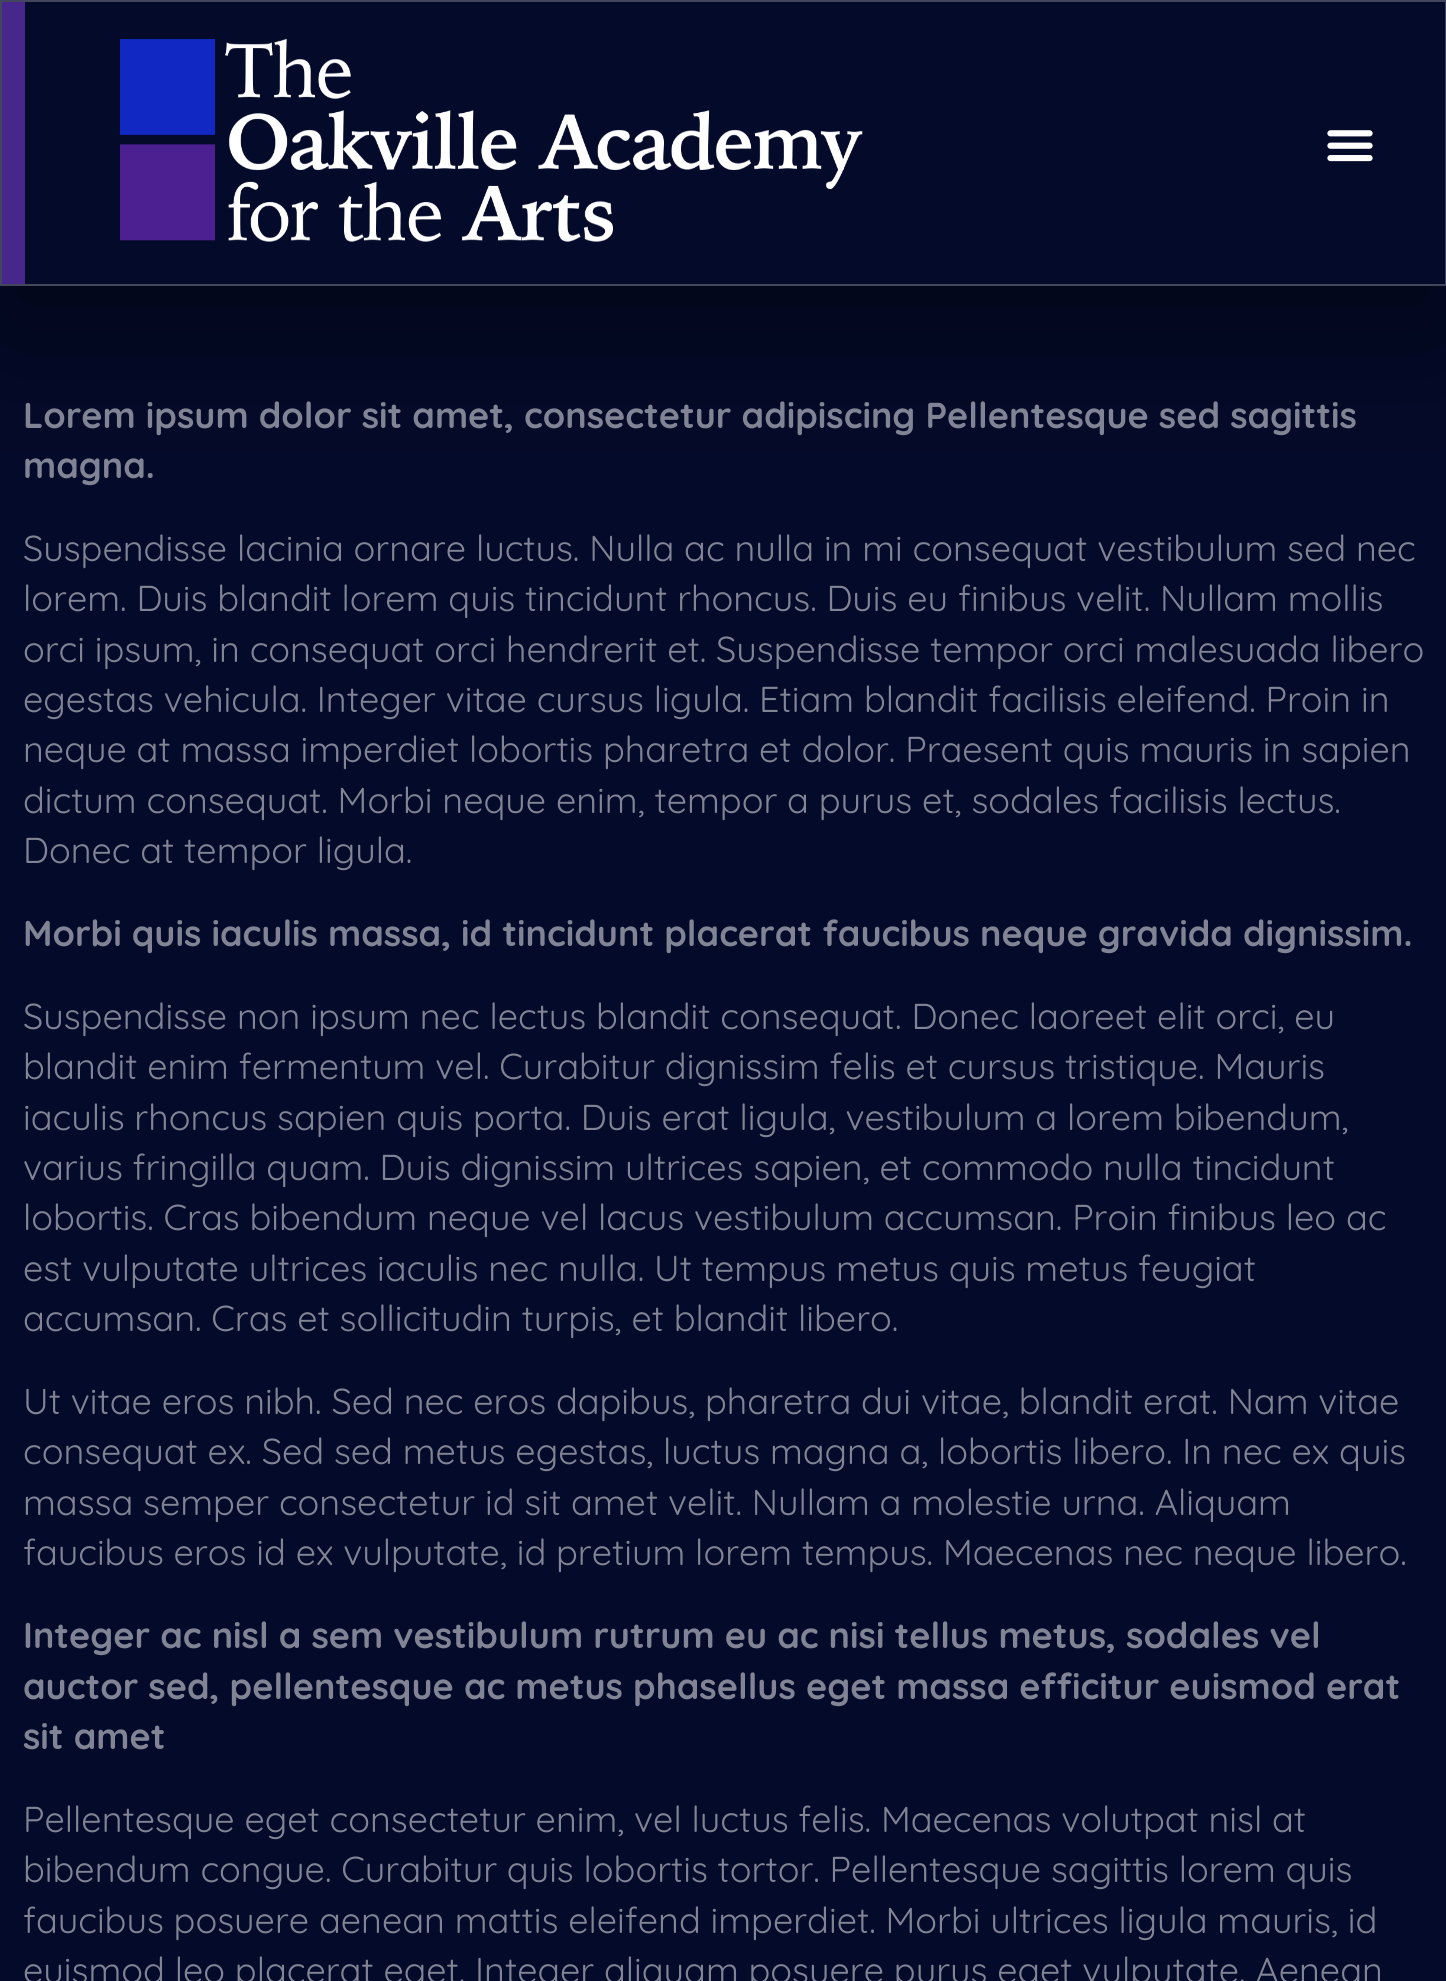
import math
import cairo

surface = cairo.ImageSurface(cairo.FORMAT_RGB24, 1446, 1981)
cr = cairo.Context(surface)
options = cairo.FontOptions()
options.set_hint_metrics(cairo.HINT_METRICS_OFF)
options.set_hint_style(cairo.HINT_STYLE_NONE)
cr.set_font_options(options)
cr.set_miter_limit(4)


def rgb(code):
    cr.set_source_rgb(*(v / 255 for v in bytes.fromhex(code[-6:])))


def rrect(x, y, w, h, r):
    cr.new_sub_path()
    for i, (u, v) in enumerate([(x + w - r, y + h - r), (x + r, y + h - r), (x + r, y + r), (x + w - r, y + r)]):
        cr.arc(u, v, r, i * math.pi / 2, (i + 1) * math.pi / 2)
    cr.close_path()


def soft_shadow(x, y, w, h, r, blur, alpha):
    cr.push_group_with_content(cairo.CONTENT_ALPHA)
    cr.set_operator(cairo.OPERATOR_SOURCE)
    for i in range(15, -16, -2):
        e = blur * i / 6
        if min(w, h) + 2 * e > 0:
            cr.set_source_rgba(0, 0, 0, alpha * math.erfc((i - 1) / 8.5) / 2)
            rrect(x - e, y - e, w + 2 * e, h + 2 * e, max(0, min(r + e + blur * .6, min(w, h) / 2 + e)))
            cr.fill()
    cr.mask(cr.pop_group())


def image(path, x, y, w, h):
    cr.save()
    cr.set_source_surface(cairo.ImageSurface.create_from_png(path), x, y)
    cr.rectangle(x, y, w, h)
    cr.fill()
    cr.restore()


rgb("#040a29")
cr.paint()
rgb("#000000")
soft_shadow(0, 34, 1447, 286, 0, 73, 0.5)
rgb("#040a29")
cr.rectangle(25, 2, 1420, 282)
cr.fill()
cr.rectangle(1, 1, 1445, 284)
rgb("#42475e")
cr.stroke()
rgb("#47278c")
cr.rectangle(2, 2, 23, 282)
cr.fill()
image("img/1.png", 120, 39, 743, 203)
image("img/2.png", 1327, 130, 46, 32)
cr.select_font_face("Quicksand", cairo.FONT_SLANT_NORMAL, cairo.FONT_WEIGHT_BOLD)
cr.set_font_size(36)
rgb("#818494")
cr.move_to(23, 428)
cr.show_text("Lorem ipsum dolor sit amet, consectetur adipiscing Pellentesque sed sagittis")
cr.move_to(23, 478)
cr.show_text("magna.")
cr.select_font_face("Quicksand")
for x, y, s in [
    (23, 561, "Suspendisse lacinia ornare luctus. Nulla ac nulla in mi consequat vestibulum sed nec"),
    (23, 611, "lorem. Duis blandit lorem quis tincidunt rhoncus. Duis eu finibus velit. Nullam mollis"),
    (23, 662, "orci ipsum, in consequat orci hendrerit et. Suspendisse tempor orci malesuada libero"),
    (23, 712, "egestas vehicula. Integer vitae cursus ligula. Etiam blandit facilisis eleifend. Proin in"),
    (23, 762, "neque at massa imperdiet lobortis pharetra et dolor. Praesent quis mauris in sapien"),
    (23, 813, "dictum consequat. Morbi neque enim, tempor a purus et, sodales facilisis lectus."),
    (23, 863, "Donec at tempor ligula."),
]:
    cr.move_to(x, y)
    cr.show_text(s)
cr.select_font_face("Quicksand", cairo.FONT_SLANT_NORMAL, cairo.FONT_WEIGHT_BOLD)
cr.move_to(23, 946)
cr.show_text("Morbi quis iaculis massa, id tincidunt placerat faucibus neque gravida dignissim.")
cr.select_font_face("Quicksand")
for x, y, s in [
    (23, 1029, "Suspendisse non ipsum nec lectus blandit consequat. Donec laoreet elit orci, eu"),
    (23, 1079, "blandit enim fermentum vel. Curabitur dignissim felis et cursus tristique. Mauris"),
    (23, 1130, "iaculis rhoncus sapien quis porta. Duis erat ligula, vestibulum a lorem bibendum,"),
    (23, 1180, "varius fringilla quam. Duis dignissim ultrices sapien, et commodo nulla tincidunt"),
    (23, 1230, "lobortis. Cras bibendum neque vel lacus vestibulum accumsan. Proin finibus leo ac"),
    (23, 1281, "est vulputate ultrices iaculis nec nulla. Ut tempus metus quis metus feugiat"),
    (23, 1331, "accumsan. Cras et sollicitudin turpis, et blandit libero."),
    (23, 1414, "Ut vitae eros nibh. Sed nec eros dapibus, pharetra dui vitae, blandit erat. Nam vitae"),
    (23, 1464, "consequat ex. Sed sed metus egestas, luctus magna a, lobortis libero. In nec ex quis"),
    (23, 1515, "massa semper consectetur id sit amet velit. Nullam a molestie urna. Aliquam"),
    (23, 1565, "faucibus eros id ex vulputate, id pretium lorem tempus. Maecenas nec neque libero."),
]:
    cr.move_to(x, y)
    cr.show_text(s)
cr.select_font_face("Quicksand", cairo.FONT_SLANT_NORMAL, cairo.FONT_WEIGHT_BOLD)
for x, y, s in [
    (23, 1648, "Integer ac nisl a sem vestibulum rutrum eu ac nisi tellus metus, sodales vel"),
    (23, 1699, "auctor sed, pellentesque ac metus phasellus eget massa efficitur euismod erat"),
    (23, 1749, "sit amet"),
]:
    cr.move_to(x, y)
    cr.show_text(s)
cr.select_font_face("Quicksand")
for x, y, s in [
    (23, 1832, "Pellentesque eget consectetur enim, vel luctus felis. Maecenas volutpat nisl at"),
    (23, 1882, "bibendum congue. Curabitur quis lobortis tortor. Pellentesque sagittis lorem quis"),
    (23, 1933, "faucibus posuere aenean mattis eleifend imperdiet. Morbi ultrices ligula mauris, id"),
    (23, 1983, "euismod leo placerat eget. Integer aliquam posuere purus eget vulputate. Aenean"),
]:
    cr.move_to(x, y)
    cr.show_text(s)
surface.write_to_png("page.png")
